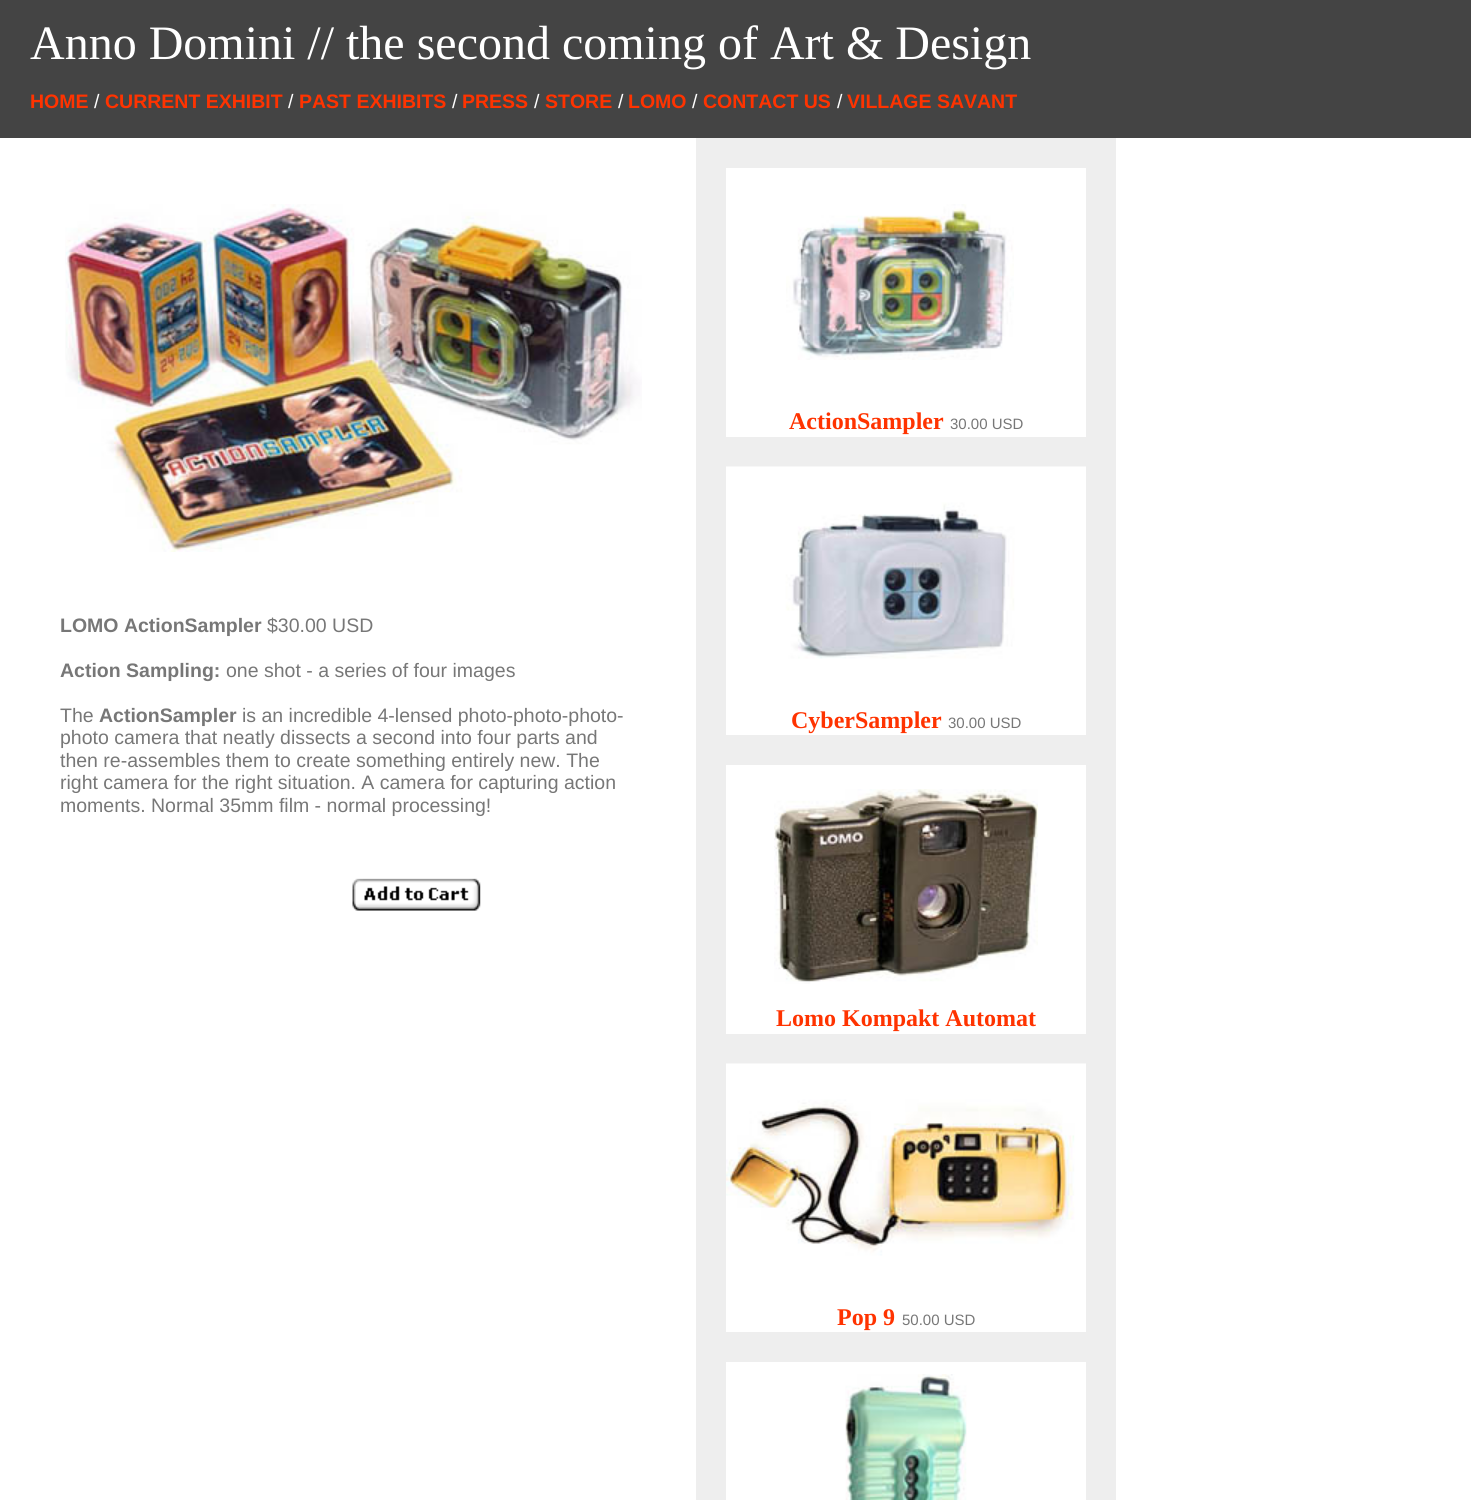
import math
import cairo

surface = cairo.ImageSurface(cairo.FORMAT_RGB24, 1471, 1500)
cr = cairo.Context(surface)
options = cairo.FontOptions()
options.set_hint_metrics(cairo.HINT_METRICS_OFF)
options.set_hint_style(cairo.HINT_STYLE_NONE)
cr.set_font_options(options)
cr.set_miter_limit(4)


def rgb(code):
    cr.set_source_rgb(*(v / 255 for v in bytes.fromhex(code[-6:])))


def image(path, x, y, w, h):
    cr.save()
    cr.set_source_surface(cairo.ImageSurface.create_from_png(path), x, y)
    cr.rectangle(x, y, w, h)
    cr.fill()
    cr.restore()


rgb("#444444")
cr.paint()
rgb("#ffffff")
cr.rectangle(0, 138, 1471, 1362)
cr.fill()
rgb("#eeeeee")
cr.rectangle(696, 138, 420, 30)
cr.fill()
image("img/1.png", 65, 204, 577, 348)
image("img/2.png", 352, 878, 129, 33)
cr.rectangle(696, 168, 30, 1332)
cr.fill()
image("img/3.png", 786, 204, 228, 156)
cr.rectangle(726, 437, 360, 30)
cr.fill()
image("img/4.png", 726, 466, 360, 193)
cr.rectangle(726, 735, 360, 30)
cr.fill()
image("img/5.png", 774, 789, 264, 195)
cr.rectangle(726, 1034, 360, 30)
cr.fill()
image("img/6.png", 726, 1063, 360, 193)
cr.rectangle(726, 1332, 360, 30)
cr.fill()
image("img/7.png", 845, 1374, 122, 126)
cr.rectangle(1086, 168, 30, 1332)
cr.fill()
cr.select_font_face("Liberation Serif")
cr.set_font_size(48)
rgb("#ffffff")
cr.move_to(30, 59)
cr.show_text("Anno Domini // the second coming of Art & Design")
cr.select_font_face("Liberation Sans", cairo.FONT_SLANT_NORMAL, cairo.FONT_WEIGHT_BOLD)
cr.set_font_size(19.5)
rgb("#ff3300")
cr.move_to(30, 108)
cr.show_text("HOME")
cr.select_font_face("Liberation Sans")
rgb("#ffffff")
cr.move_to(94, 108)
cr.show_text("/")
cr.select_font_face("Liberation Sans", cairo.FONT_SLANT_NORMAL, cairo.FONT_WEIGHT_BOLD)
rgb("#ff3300")
cr.move_to(105, 108)
cr.show_text("CURRENT EXHIBIT")
cr.select_font_face("Liberation Sans")
rgb("#ffffff")
cr.move_to(288, 108)
cr.show_text("/")
cr.select_font_face("Liberation Sans", cairo.FONT_SLANT_NORMAL, cairo.FONT_WEIGHT_BOLD)
rgb("#ff3300")
cr.move_to(299, 108)
cr.show_text("PAST EXHIBITS")
cr.select_font_face("Liberation Sans")
rgb("#ffffff")
cr.move_to(452, 108)
cr.show_text("/")
cr.select_font_face("Liberation Sans", cairo.FONT_SLANT_NORMAL, cairo.FONT_WEIGHT_BOLD)
rgb("#ff3300")
cr.move_to(462, 108)
cr.show_text("PRESS")
cr.select_font_face("Liberation Sans")
rgb("#ffffff")
cr.move_to(534, 108)
cr.show_text("/")
cr.select_font_face("Liberation Sans", cairo.FONT_SLANT_NORMAL, cairo.FONT_WEIGHT_BOLD)
rgb("#ff3300")
cr.move_to(545, 108)
cr.show_text("STORE")
cr.select_font_face("Liberation Sans")
rgb("#ffffff")
cr.move_to(618, 108)
cr.show_text("/")
cr.select_font_face("Liberation Sans", cairo.FONT_SLANT_NORMAL, cairo.FONT_WEIGHT_BOLD)
rgb("#ff3300")
cr.move_to(628, 108)
cr.show_text("LOMO")
cr.select_font_face("Liberation Sans")
rgb("#ffffff")
cr.move_to(692, 108)
cr.show_text("/")
cr.select_font_face("Liberation Sans", cairo.FONT_SLANT_NORMAL, cairo.FONT_WEIGHT_BOLD)
rgb("#ff3300")
cr.move_to(703, 108)
cr.show_text("CONTACT US")
cr.select_font_face("Liberation Sans")
rgb("#ffffff")
cr.move_to(837, 108)
cr.show_text("/")
cr.select_font_face("Liberation Sans", cairo.FONT_SLANT_NORMAL, cairo.FONT_WEIGHT_BOLD)
rgb("#ff3300")
cr.move_to(847, 108)
cr.show_text("VILLAGE SAVANT")
rgb("#777777")
cr.move_to(60, 632)
cr.show_text("LOMO ActionSampler")
cr.select_font_face("Liberation Sans")
cr.move_to(267, 632)
cr.show_text("$30.00 USD")
cr.select_font_face("Liberation Sans", cairo.FONT_SLANT_NORMAL, cairo.FONT_WEIGHT_BOLD)
cr.move_to(60, 677)
cr.show_text("Action Sampling:")
cr.select_font_face("Liberation Sans")
cr.move_to(226, 677)
cr.show_text("one shot - a series of four images")
cr.move_to(60, 722)
cr.show_text("The")
cr.select_font_face("Liberation Sans", cairo.FONT_SLANT_NORMAL, cairo.FONT_WEIGHT_BOLD)
cr.move_to(99, 722)
cr.show_text("ActionSampler")
cr.select_font_face("Liberation Sans")
for x, y, s in [
    (242, 722, "is an incredible 4-lensed photo-photo-photo-"),
    (60, 744, "photo camera that neatly dissects a second into four parts and"),
    (60, 767, "then re-assembles them to create something entirely new. The"),
    (60, 789, "right camera for the right situation. A camera for capturing action"),
    (60, 812, "moments. Normal 35mm film - normal processing!"),
]:
    cr.move_to(x, y)
    cr.show_text(s)
cr.select_font_face("Liberation Serif", cairo.FONT_SLANT_NORMAL, cairo.FONT_WEIGHT_BOLD)
cr.set_font_size(24)
rgb("#ff3300")
cr.move_to(789, 429)
cr.show_text("ActionSampler")
cr.select_font_face("Liberation Sans")
cr.set_font_size(15)
rgb("#777777")
cr.move_to(950, 429)
cr.show_text("30.00 USD")
cr.select_font_face("Liberation Serif", cairo.FONT_SLANT_NORMAL, cairo.FONT_WEIGHT_BOLD)
cr.set_font_size(24)
rgb("#ff3300")
cr.move_to(791, 728)
cr.show_text("CyberSampler")
cr.select_font_face("Liberation Sans")
cr.set_font_size(15)
rgb("#777777")
cr.move_to(948, 728)
cr.show_text("30.00 USD")
cr.select_font_face("Liberation Serif", cairo.FONT_SLANT_NORMAL, cairo.FONT_WEIGHT_BOLD)
cr.set_font_size(24)
rgb("#ff3300")
cr.move_to(776, 1026)
cr.show_text("Lomo Kompakt Automat")
cr.move_to(837, 1325)
cr.show_text("Pop 9")
cr.select_font_face("Liberation Sans")
cr.set_font_size(15)
rgb("#777777")
cr.move_to(902, 1325)
cr.show_text("50.00 USD")
surface.write_to_png("page.png")
